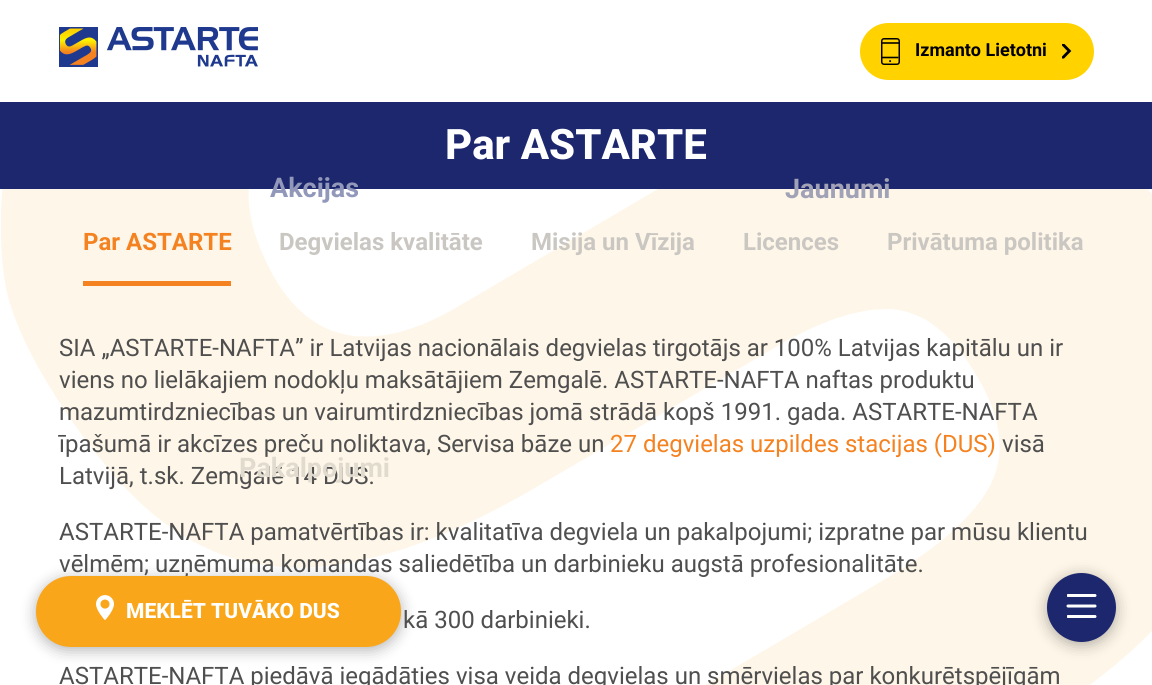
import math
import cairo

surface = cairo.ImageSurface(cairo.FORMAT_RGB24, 1152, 685)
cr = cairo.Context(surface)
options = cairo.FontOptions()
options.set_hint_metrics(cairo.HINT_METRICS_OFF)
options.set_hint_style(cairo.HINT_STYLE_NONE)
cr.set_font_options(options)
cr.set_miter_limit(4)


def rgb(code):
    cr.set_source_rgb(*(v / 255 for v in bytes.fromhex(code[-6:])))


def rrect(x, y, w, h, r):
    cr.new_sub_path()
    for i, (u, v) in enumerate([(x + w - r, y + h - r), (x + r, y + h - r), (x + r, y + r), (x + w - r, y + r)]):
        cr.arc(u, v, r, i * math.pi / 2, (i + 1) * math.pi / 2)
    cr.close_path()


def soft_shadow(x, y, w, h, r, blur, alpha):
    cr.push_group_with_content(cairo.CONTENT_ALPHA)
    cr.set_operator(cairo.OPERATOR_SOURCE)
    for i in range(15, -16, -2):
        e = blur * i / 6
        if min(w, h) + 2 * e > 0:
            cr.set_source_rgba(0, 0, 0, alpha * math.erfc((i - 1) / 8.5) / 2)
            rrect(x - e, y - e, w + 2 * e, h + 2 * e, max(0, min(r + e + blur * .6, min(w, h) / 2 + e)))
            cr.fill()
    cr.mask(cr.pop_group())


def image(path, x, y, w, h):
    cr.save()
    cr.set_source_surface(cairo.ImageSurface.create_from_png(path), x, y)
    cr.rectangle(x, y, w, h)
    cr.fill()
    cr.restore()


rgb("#ffffff")
cr.paint()
image("img/1.png", 1, 189, 1151, 496)
image("img/2.png", 59, 27, 199, 40)
rgb("#ffd200")
rrect(860, 23, 234, 57, 28.5)
cr.fill()
rrect(881.75, 38.75, 17.5, 25.5, 2.25)
rgb("#000000")
cr.set_line_width(1.5)
cr.stroke()
cr.set_source_rgba(0, 0, 0, 0.8)
cr.rectangle(882, 42, 17, 2)
cr.fill()
cr.new_path()
cr.move_to(881.5, 57.5)
cr.line_to(898.5, 57.5)
rgb("#000000")
cr.set_line_width(1.6)
cr.stroke()
cr.arc(890.1, 61.1, 1, 0, 2 * math.pi)
cr.fill()
image("img/3.png", 1062, 44, 10, 15)
rgb("#1c276e")
cr.rectangle(0, 102, 1152, 87)
cr.fill()
rgb("#f58220")
cr.rectangle(83, 281, 148, 5)
cr.fill()
rgb("#000000")
soft_shadow(36, 579, 365, 71, 35, 7.5, 0.3)
soft_shadow(1047, 576, 69, 69, 34.5, 7.5, 0.3)
rgb("#1c276e")
cr.arc(1081.5, 607.5, 34.5, 0, 2 * math.pi)
cr.fill()
cr.save()
cr.rectangle(1067, 594, 30, 24)
cr.clip()
cr.new_path()
cr.move_to(1068, 595.5)
cr.line_to(1095, 595.5)
rgb("#ffffff")
cr.set_line_width(3)
cr.set_line_cap(cairo.LINE_CAP_ROUND)
cr.stroke()
cr.restore()
cr.new_path()
cr.move_to(1068, 606)
cr.line_to(1095, 606)
rgb("#ffffff")
cr.set_line_width(3)
cr.set_line_cap(cairo.LINE_CAP_ROUND)
cr.stroke()
cr.save()
cr.rectangle(1067, 594, 30, 24)
cr.clip()
cr.new_path()
cr.move_to(1068, 616.5)
cr.line_to(1095, 616.5)
cr.stroke()
cr.restore()
cr.select_font_face("Roboto", cairo.FONT_SLANT_NORMAL, cairo.FONT_WEIGHT_BOLD)
cr.set_font_size(18)
rgb("#000000")
cr.move_to(915, 56)
cr.show_text("Izmanto Lietotni")
cr.select_font_face("Roboto ExtraBold")
cr.set_font_size(42)
rgb("#ffffff")
cr.move_to(445, 159)
cr.show_text("Par ASTARTE")
cr.select_font_face("Roboto", cairo.FONT_SLANT_NORMAL, cairo.FONT_WEIGHT_BOLD)
cr.set_font_size(24)
rgb("#f58220")
cr.move_to(83, 250)
cr.show_text("Par ASTARTE")
rgb("#cac7c2")
for x, y, s in [
    (279, 250, "Degvielas kvalitāte"),
    (531, 250, "Misija un Vīzija"),
    (743, 250, "Licences"),
    (887, 250, "Privātuma politika"),
]:
    cr.move_to(x, y)
    cr.show_text(s)
cr.select_font_face("Roboto")
rgb("#4f4f4f")
for x, y, s in [
    (59, 356, "SIA „ASTARTE-NAFTA” ir Latvijas nacionālais degvielas tirgotājs ar 100% Latvijas kapitālu un ir"),
    (59, 388, "viens no lielākajiem nodokļu maksātājiem Zemgalē. ASTARTE-NAFTA naftas produktu"),
    (59, 420, "mazumtirdzniecības un vairumtirdzniecības jomā strādā kopš 1991. gada. ASTARTE-NAFTA"),
    (59, 452, "īpašumā ir akcīzes preču noliktava, Servisa bāze un"),
]:
    cr.move_to(x, y)
    cr.show_text(s)
rgb("#f58220")
cr.move_to(610, 452)
cr.show_text("27 degvielas uzpildes stacijas (DUS)")
rgb("#4f4f4f")
for x, y, s in [
    (1002, 452, "visā"),
    (59, 484, "Latvijā, t.sk. Zemgalē 14 DUS."),
    (59, 540, "ASTARTE-NAFTA pamatvērtības ir: kvalitatīva degviela un pakalpojumi; izpratne par mūsu klientu"),
    (59, 572, "vēlmēm; uzņēmuma komandas saliedētība un darbinieku augstā profesionalitāte."),
    (403, 628, "kā 300 darbinieki."),
    (59, 684, "ASTARTE-NAFTA piedāvā iegādāties visa veida degvielas un smērvielas par konkurētspējīgām"),
]:
    cr.move_to(x, y)
    cr.show_text(s)
rgb("#faa61a")
rrect(36, 576, 365, 71, 35)
cr.fill()
image("img/4.png", 96, 595, 18, 25)
cr.select_font_face("Roboto ExtraBold")
cr.set_font_size(21)
rgb("#ffffff")
cr.move_to(126, 618)
cr.show_text("MEKLĒT TUVĀKO DUS")
cr.select_font_face("Roboto", cairo.FONT_SLANT_NORMAL, cairo.FONT_WEIGHT_BOLD)
cr.set_font_size(27)
rgb("#9298ba")
cr.move_to(270, 197)
cr.show_text("Akcijas")
rgb("#a2a2b6")
cr.move_to(785, 198)
cr.show_text("Jaunumi")
rgb("#e1dbcf")
cr.move_to(239, 477)
cr.show_text("Pakalpojumi")
surface.write_to_png("page.png")
